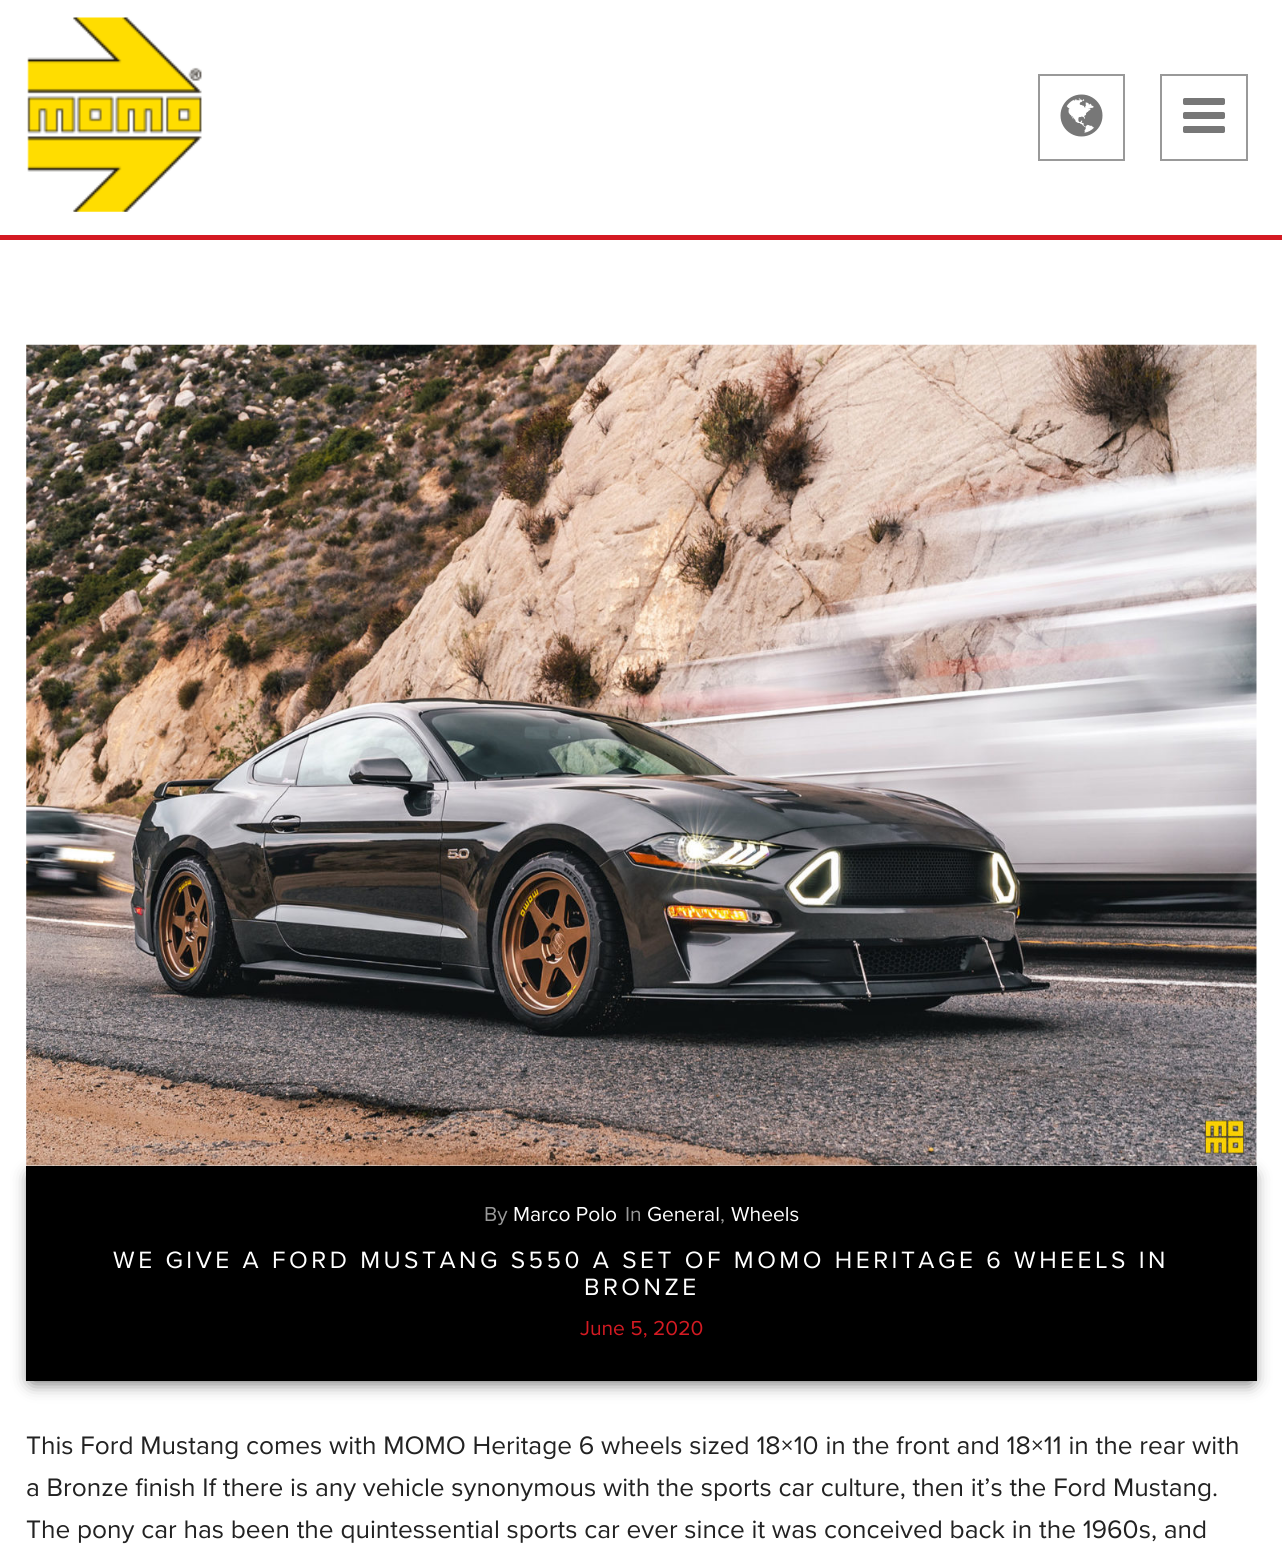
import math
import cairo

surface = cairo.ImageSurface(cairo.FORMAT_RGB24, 1282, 1555)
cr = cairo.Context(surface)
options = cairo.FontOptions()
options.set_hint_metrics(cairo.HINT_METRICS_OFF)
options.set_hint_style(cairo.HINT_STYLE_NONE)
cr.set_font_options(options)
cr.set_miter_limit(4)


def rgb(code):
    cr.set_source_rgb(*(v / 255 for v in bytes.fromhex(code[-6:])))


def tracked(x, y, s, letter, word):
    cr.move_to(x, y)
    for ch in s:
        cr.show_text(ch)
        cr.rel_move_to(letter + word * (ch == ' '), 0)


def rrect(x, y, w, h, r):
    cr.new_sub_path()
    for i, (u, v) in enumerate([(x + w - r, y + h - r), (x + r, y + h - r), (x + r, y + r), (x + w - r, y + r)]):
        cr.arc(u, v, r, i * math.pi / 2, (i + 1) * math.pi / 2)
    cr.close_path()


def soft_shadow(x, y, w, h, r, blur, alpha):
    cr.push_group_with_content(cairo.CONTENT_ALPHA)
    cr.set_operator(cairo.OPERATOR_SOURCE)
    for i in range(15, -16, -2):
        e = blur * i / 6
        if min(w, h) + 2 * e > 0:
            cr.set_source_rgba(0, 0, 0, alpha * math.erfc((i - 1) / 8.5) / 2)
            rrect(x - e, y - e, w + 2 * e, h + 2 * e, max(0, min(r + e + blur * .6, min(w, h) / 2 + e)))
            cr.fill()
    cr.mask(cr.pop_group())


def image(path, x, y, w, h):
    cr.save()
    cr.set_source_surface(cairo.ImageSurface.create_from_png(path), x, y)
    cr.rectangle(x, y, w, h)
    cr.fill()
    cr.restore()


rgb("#ffffff")
cr.paint()
rgb("#d41a22")
cr.rectangle(0, 235, 1282, 5)
cr.fill()
image("img/1.png", 27, 17, 175, 195)
cr.rectangle(1039, 75, 85, 85)
rgb("#999999")
cr.stroke()
image("img/2.png", 1060, 94, 43, 43)
cr.rectangle(1161, 75, 86, 85)
cr.stroke()
image("img/3.png", 1183, 98, 42, 35)
image("img/4.png", 26, 344, 1231, 822)
rgb("#000000")
soft_shadow(32, 1176, 1219, 205, 0, 9, 0.7)
rgb("#000000")
cr.rectangle(26, 1166, 1231, 215)
cr.fill()
cr.select_font_face("Proxima Nova")
cr.set_font_size(21)
rgb("#999999")
cr.move_to(484, 1221)
cr.show_text("By")
rgb("#ffffff")
cr.move_to(513, 1221)
cr.show_text("Marco Polo")
rgb("#999999")
cr.move_to(625, 1221)
cr.show_text("In")
rgb("#ffffff")
cr.move_to(647, 1221)
cr.show_text("General")
rgb("#999999")
cr.move_to(720, 1221)
cr.show_text(",")
rgb("#ffffff")
cr.move_to(731, 1221)
cr.show_text("Wheels")
cr.set_font_size(24.5)
tracked(113, 1268, "WE GIVE A FORD MUSTANG S550 A SET OF MOMO HERITAGE 6 WHEELS IN", 3.5, 0)
tracked(584, 1295, "BRONZE", 3.5, 0)
cr.set_font_size(21)
rgb("#d41a22")
cr.move_to(580, 1335)
cr.show_text("June 5, 2020")
cr.set_font_size(26.25)
rgb("#222222")
for x, y, s in [
    (26, 1454, "This Ford Mustang comes with MOMO Heritage 6 wheels sized 18×10 in the front and 18×11 in the rear with"),
    (26, 1496, "a Bronze finish If there is any vehicle synonymous with the sports car culture, then it’s the Ford Mustang."),
    (26, 1538, "The pony car has been the quintessential sports car ever since it was conceived back in the 1960s, and"),
]:
    cr.move_to(x, y)
    cr.show_text(s)
surface.write_to_png("page.png")
